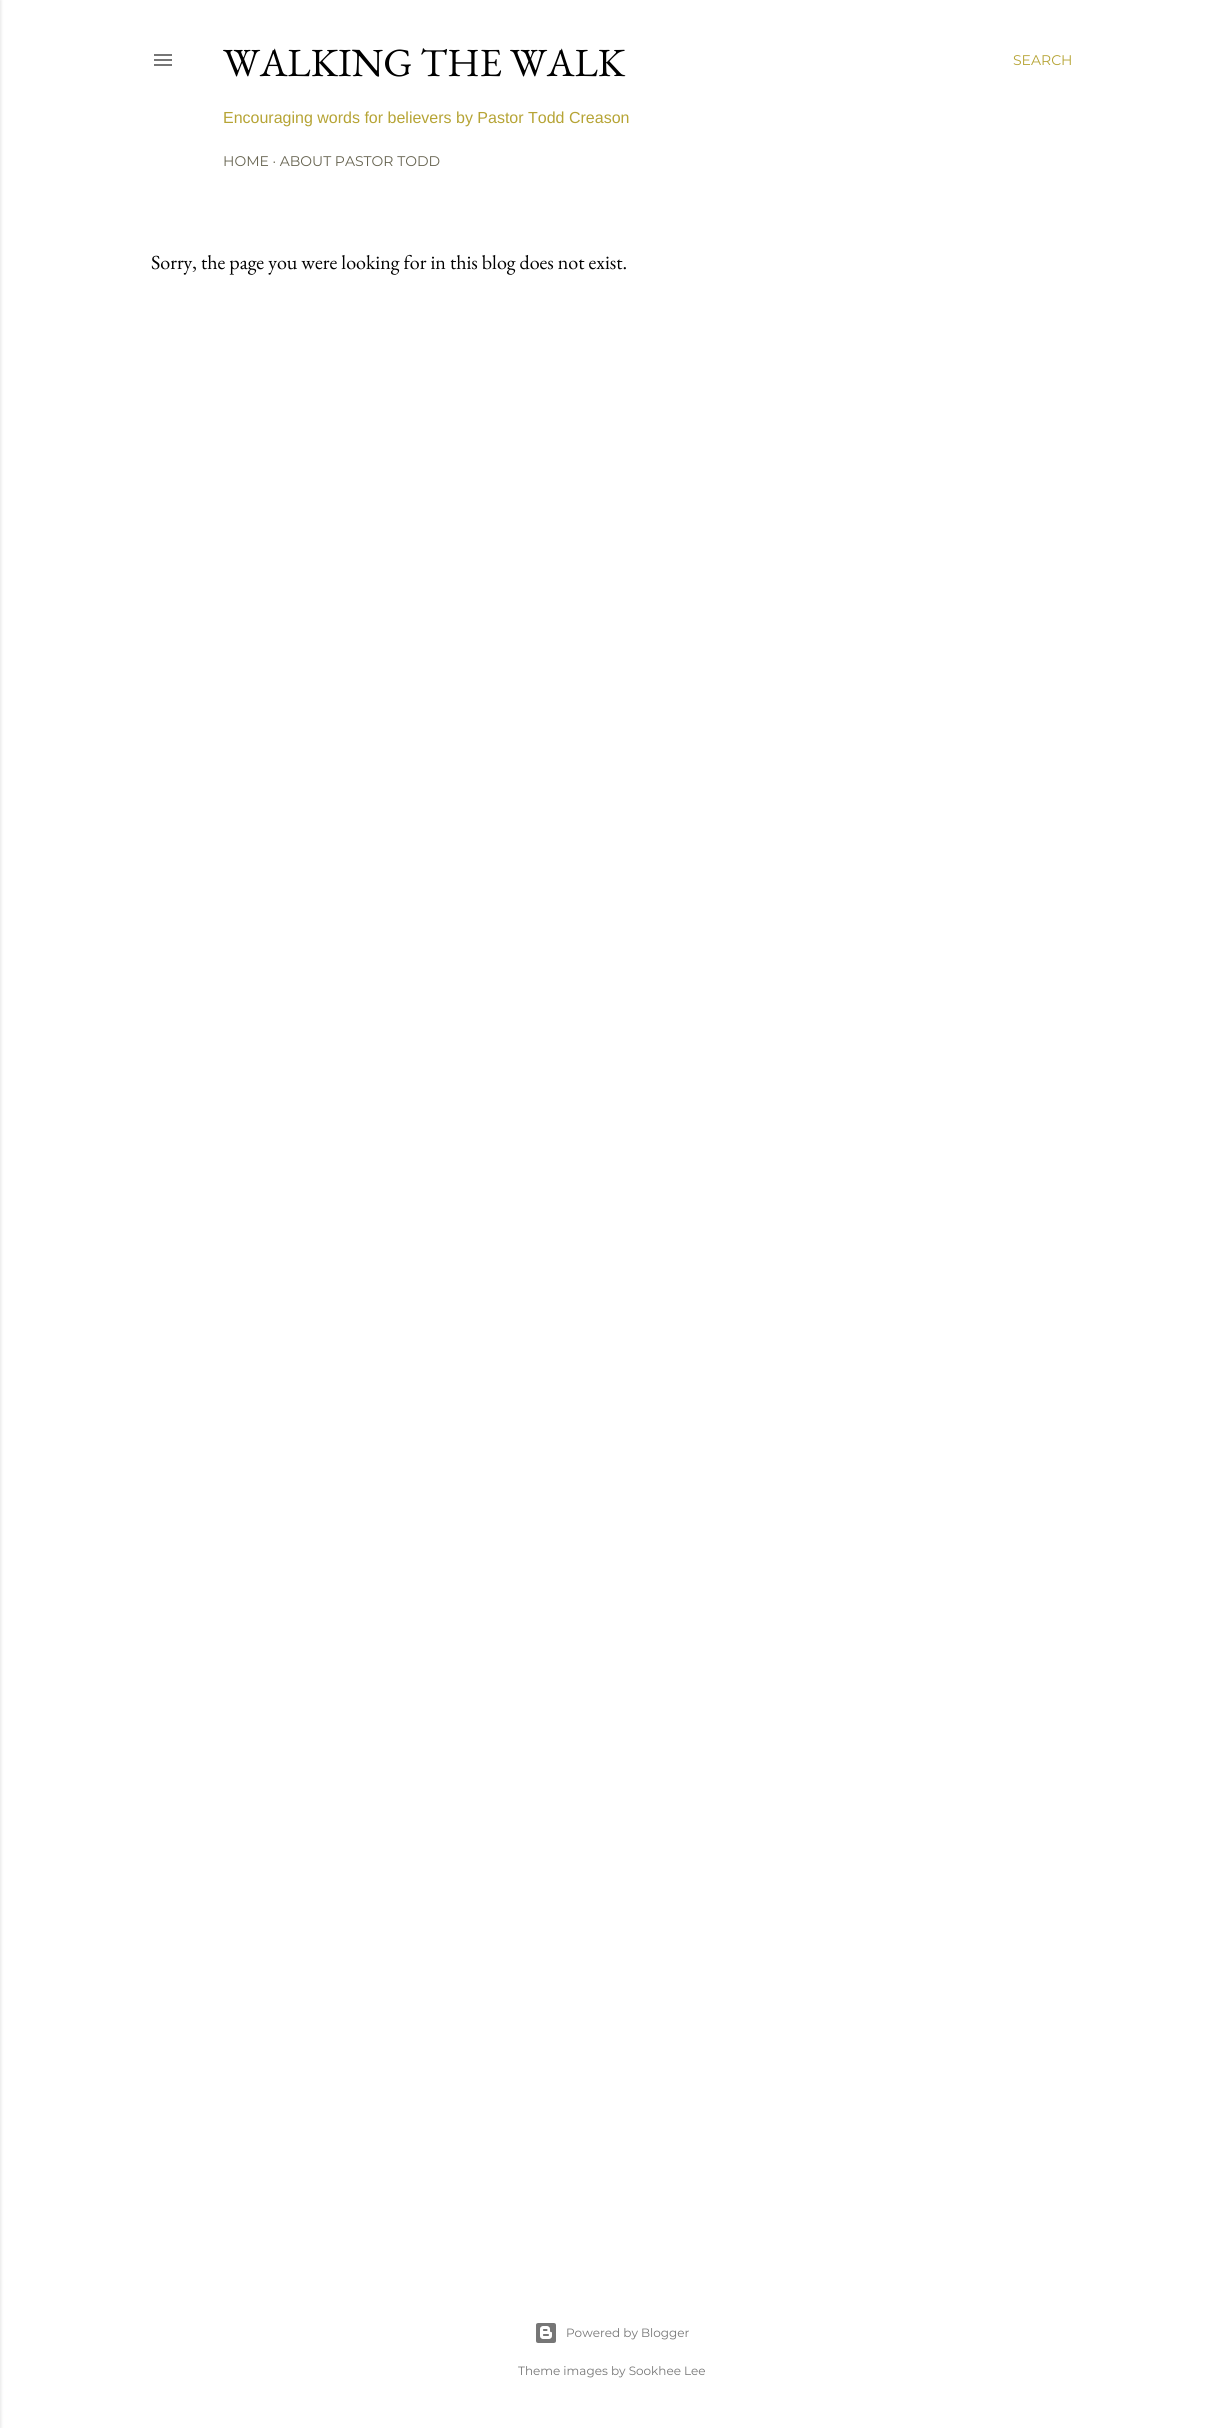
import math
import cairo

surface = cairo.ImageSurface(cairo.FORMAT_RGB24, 1223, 2428)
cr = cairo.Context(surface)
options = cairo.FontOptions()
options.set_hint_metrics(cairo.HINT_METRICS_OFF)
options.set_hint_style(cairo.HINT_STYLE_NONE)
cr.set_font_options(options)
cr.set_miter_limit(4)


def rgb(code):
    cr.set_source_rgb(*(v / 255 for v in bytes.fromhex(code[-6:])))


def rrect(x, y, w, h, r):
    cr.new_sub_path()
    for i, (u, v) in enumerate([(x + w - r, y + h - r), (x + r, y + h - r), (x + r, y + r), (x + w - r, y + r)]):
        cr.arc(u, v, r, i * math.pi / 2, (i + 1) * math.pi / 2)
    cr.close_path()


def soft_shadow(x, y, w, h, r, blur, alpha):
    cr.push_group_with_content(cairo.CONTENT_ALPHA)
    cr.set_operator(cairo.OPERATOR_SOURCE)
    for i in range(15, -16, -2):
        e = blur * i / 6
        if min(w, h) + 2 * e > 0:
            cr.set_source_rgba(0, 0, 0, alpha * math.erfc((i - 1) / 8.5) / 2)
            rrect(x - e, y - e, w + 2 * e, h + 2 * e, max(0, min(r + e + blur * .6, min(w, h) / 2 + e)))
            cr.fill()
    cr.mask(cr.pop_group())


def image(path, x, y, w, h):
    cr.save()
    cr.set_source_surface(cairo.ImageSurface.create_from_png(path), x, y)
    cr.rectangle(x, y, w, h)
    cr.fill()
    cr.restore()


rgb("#ffffff")
cr.paint()
rgb("#000000")
soft_shadow(-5, 0, 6, 2428, 0, 1.5, 0.1)
image("img/1.png", 154, 54, 18, 12)
image("img/2.png", 536, 2323, 20, 20)
cr.select_font_face("EB Garamond")
cr.set_font_size(40)
rgb("#000000")
cr.move_to(223, 76)
cr.show_text("WALKING THE WALK")
cr.select_font_face("Liberation Sans")
cr.set_font_size(16)
rgb("#b6a435")
cr.move_to(223, 123)
cr.show_text("Encouraging words for believers by Pastor Todd Creason")
cr.select_font_face("Montserrat")
cr.set_font_size(14)
rgb("#676451")
cr.move_to(223, 166)
cr.show_text("HOME · ABOUT PASTOR TODD")
rgb("#b6a435")
cr.move_to(1013, 65)
cr.show_text("SEARCH")
cr.select_font_face("EB Garamond")
cr.set_font_size(20)
rgb("#000000")
cr.move_to(151, 269)
cr.show_text("Sorry, the page you were looking for in this blog does not exist.")
cr.select_font_face("Montserrat")
cr.set_font_size(12)
rgb("#767676")
cr.move_to(566, 2337)
cr.show_text("Powered by Blogger")
cr.move_to(518, 2375)
cr.show_text("Theme images by Sookhee Lee")
surface.write_to_png("page.png")
